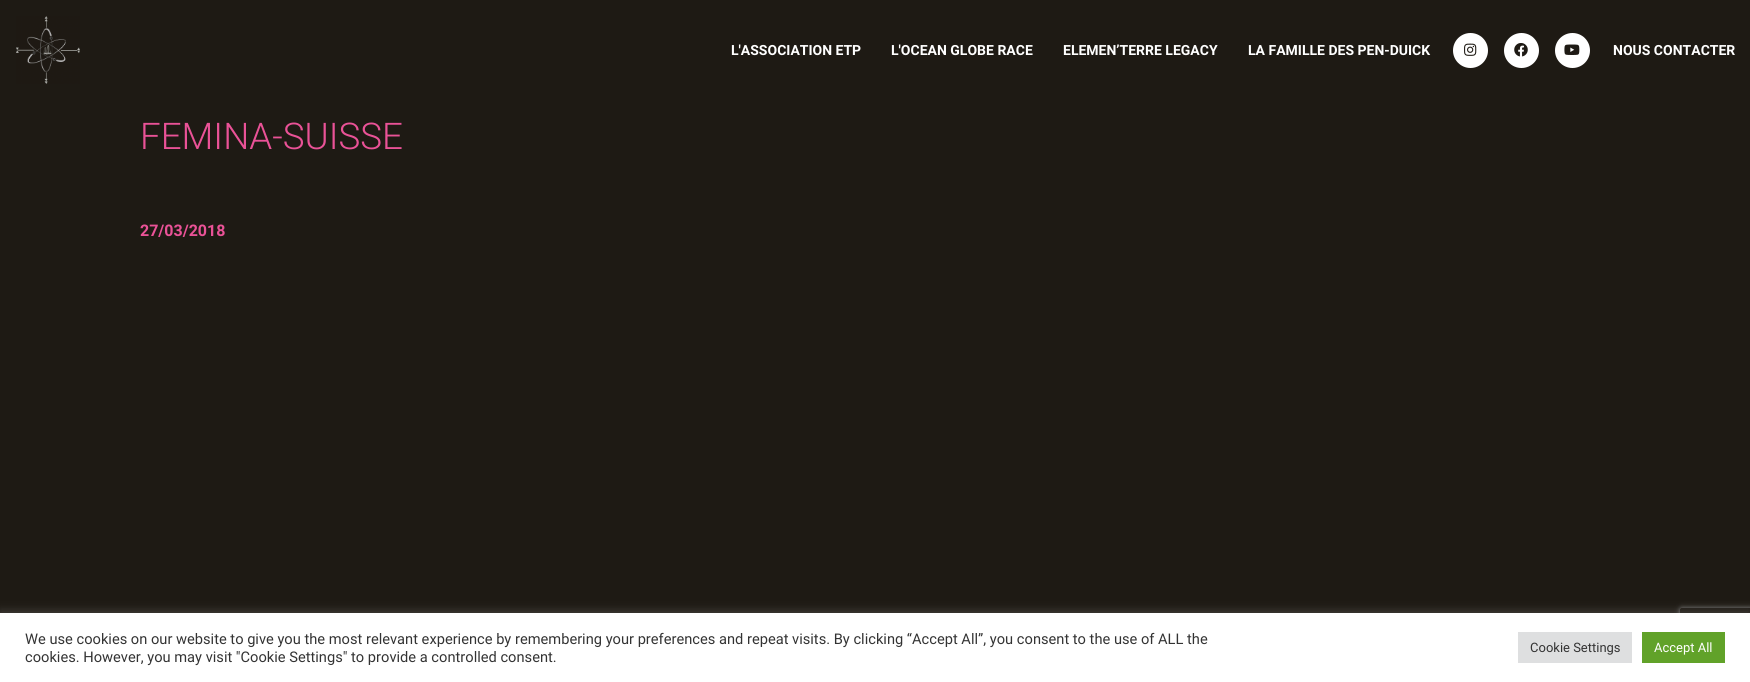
import math
import cairo

surface = cairo.ImageSurface(cairo.FORMAT_RGB24, 1750, 682)
cr = cairo.Context(surface)
options = cairo.FontOptions()
options.set_hint_metrics(cairo.HINT_METRICS_OFF)
options.set_hint_style(cairo.HINT_STYLE_NONE)
cr.set_font_options(options)
cr.set_miter_limit(4)


def rgb(code):
    cr.set_source_rgb(*(v / 255 for v in bytes.fromhex(code[-6:])))


def rrect(x, y, w, h, r):
    cr.new_sub_path()
    for i, (u, v) in enumerate([(x + w - r, y + h - r), (x + r, y + h - r), (x + r, y + r), (x + w - r, y + r)]):
        cr.arc(u, v, r, i * math.pi / 2, (i + 1) * math.pi / 2)
    cr.close_path()


def soft_shadow(x, y, w, h, r, blur, alpha):
    cr.push_group_with_content(cairo.CONTENT_ALPHA)
    cr.set_operator(cairo.OPERATOR_SOURCE)
    for i in range(15, -16, -2):
        e = blur * i / 6
        if min(w, h) + 2 * e > 0:
            cr.set_source_rgba(0, 0, 0, alpha * math.erfc((i - 1) / 8.5) / 2)
            rrect(x - e, y - e, w + 2 * e, h + 2 * e, max(0, min(r + e + blur * .6, min(w, h) / 2 + e)))
            cr.fill()
    cr.mask(cr.pop_group())


def image(path, x, y, w, h):
    cr.save()
    cr.set_source_surface(cairo.ImageSurface.create_from_png(path), x, y)
    cr.rectangle(x, y, w, h)
    cr.fill()
    cr.restore()


rgb("#1e1a14")
cr.paint()
image("img/1.png", 16, 16, 64, 68)
rgb("#ffffff")
cr.arc(1470.5, 50.5, 17.5, 0, 2 * math.pi)
cr.fill()
image("img/2.png", 1464, 43, 13, 13)
cr.arc(1521.5, 50.5, 17.5, 0, 2 * math.pi)
cr.fill()
image("img/3.png", 1514, 43, 14, 14)
cr.arc(1572.5, 50.5, 17.5, 0, 2 * math.pi)
cr.fill()
image("img/4.png", 1564, 44, 16, 11)
cr.save()
cr.set_fill_rule(cairo.FILL_RULE_EVEN_ODD)
cr.new_path()
cr.move_to(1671, 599)
cr.line_to(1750, 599)
cr.line_to(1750, 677)
cr.line_to(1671, 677)
cr.close_path()
cr.move_to(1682, 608)
cr.line_to(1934, 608)
cr.curve_to(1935, 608, 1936, 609, 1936, 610)
cr.line_to(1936, 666)
cr.curve_to(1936, 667, 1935, 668, 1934, 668)
cr.line_to(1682, 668)
cr.curve_to(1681, 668, 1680, 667, 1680, 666)
cr.line_to(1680, 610)
cr.curve_to(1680, 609, 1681, 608, 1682, 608)
cr.close_path()
cr.clip()
rgb("#808080")
soft_shadow(1680, 608, 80, 60, 2, 2.5, 1)
cr.restore()
rgb("#acabab")
soft_shadow(0, 612, 1750, 69, 0, 5, 0.3)
for x, y, w, h, color in [
    (0, 613, 1750, 69, "#ffffff"),
    (1518, 632, 114, 31, "#dedfe0"),
    (1642, 632, 83, 31, "#61a229"),
]:
    rgb(color)
    cr.rectangle(x, y, w, h)
    cr.fill()
cr.select_font_face("Roboto", cairo.FONT_SLANT_NORMAL, cairo.FONT_WEIGHT_BOLD)
cr.set_font_size(14)
rgb("#ffffff")
for x, y, s in [
    (731, 55, "L'ASSOCIATION ETP"),
    (891, 55, "L'OCEAN GLOBE RACE"),
    (1063, 55, "ELEMEN’TERRE LEGACY"),
    (1248, 55, "LA FAMILLE DES PEN-DUICK"),
    (1613, 55, "NOUS CONTACTER"),
]:
    cr.move_to(x, y)
    cr.show_text(s)
cr.select_font_face("Roboto Light")
cr.set_font_size(36.75)
rgb("#ea5297")
cr.move_to(140, 149)
cr.show_text("FEMINA-SUISSE")
cr.select_font_face("Roboto", cairo.FONT_SLANT_NORMAL, cairo.FONT_WEIGHT_BOLD)
cr.set_font_size(16)
cr.move_to(140, 236)
cr.show_text("27/03/2018")
cr.select_font_face("Roboto")
cr.set_font_size(14.67)
rgb("#333333")
cr.move_to(25, 644)
cr.show_text("We use cookies on our website to give you the most relevant experience by remembering your preferences and repeat visits. By clicking “Accept All”, you consent to the use of ALL the")
cr.move_to(25, 662)
cr.show_text("cookies. However, you may visit \"Cookie Settings\" to provide a controlled consent.")
cr.set_font_size(13)
cr.move_to(1530, 652)
cr.show_text("Cookie Settings")
rgb("#ffffff")
cr.move_to(1654, 652)
cr.show_text("Accept All")
surface.write_to_png("page.png")
